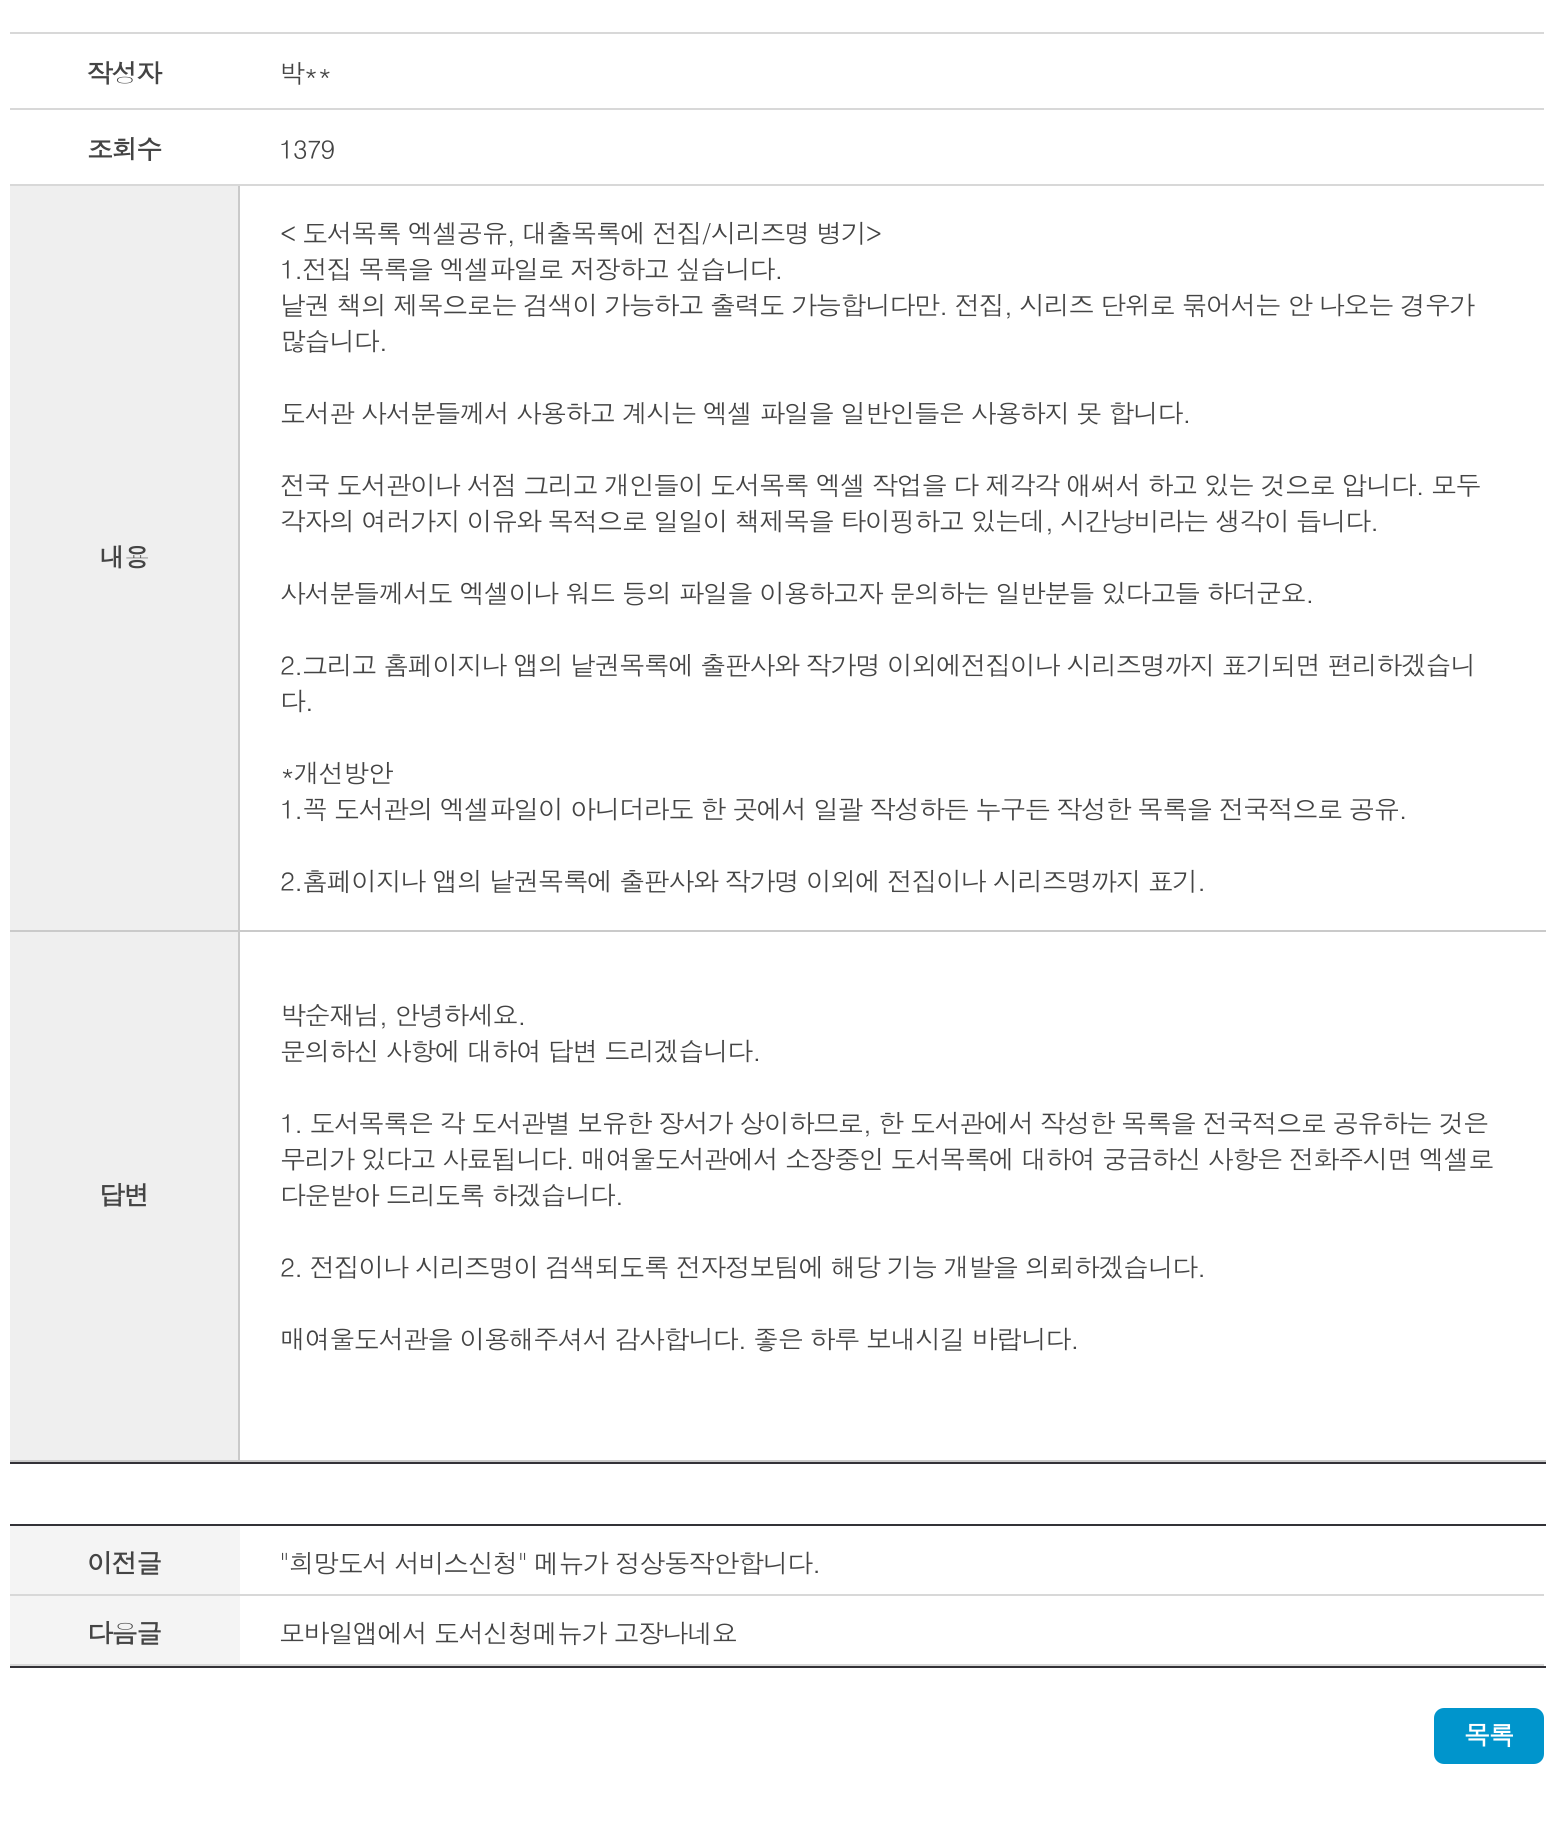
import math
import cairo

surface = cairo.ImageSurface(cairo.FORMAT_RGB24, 1553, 1839)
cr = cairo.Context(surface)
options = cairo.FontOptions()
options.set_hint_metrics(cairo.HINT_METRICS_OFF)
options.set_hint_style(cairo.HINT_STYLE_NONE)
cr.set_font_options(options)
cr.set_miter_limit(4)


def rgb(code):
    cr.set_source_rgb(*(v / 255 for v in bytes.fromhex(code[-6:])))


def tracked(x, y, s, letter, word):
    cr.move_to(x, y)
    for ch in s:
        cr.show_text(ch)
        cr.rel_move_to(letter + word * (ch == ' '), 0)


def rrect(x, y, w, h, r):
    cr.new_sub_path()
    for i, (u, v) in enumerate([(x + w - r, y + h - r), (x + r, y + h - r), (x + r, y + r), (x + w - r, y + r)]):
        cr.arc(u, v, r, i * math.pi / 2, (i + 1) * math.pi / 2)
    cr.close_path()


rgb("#ffffff")
cr.paint()
for x, y, w, h, color in [
    (10, 1462, 1536, 2, "#333237"),
    (10, 32, 1534, 2, "#d8d8d8"),
    (10, 108, 1534, 2, "#d8d8d8"),
    (10, 184, 1534, 2, "#d8d8d8"),
    (10, 186, 228, 744, "#efefef"),
    (238, 1460, 1308, 2, "#cacaca"),
    (238, 930, 2, 532, "#cacaca"),
    (238, 930, 1308, 2, "#cacaca"),
    (238, 186, 2, 746, "#cacaca"),
    (10, 930, 230, 2, "#cacaca"),
    (10, 932, 228, 528, "#efefef"),
    (10, 1460, 230, 2, "#cacaca"),
    (10, 1524, 1536, 2, "#333237"),
    (10, 1666, 1536, 2, "#333237"),
    (10, 1526, 230, 68, "#f4f4f4"),
    (10, 1594, 1534, 2, "#d8d8d8"),
    (10, 1596, 230, 68, "#f4f4f4"),
    (10, 1664, 1534, 2, "#d8d8d8"),
]:
    rgb(color)
    cr.rectangle(x, y, w, h)
    cr.fill()
rgb("#0095cc")
rrect(1434, 1708, 110, 56, 10)
cr.fill()
cr.select_font_face("Dotum", cairo.FONT_SLANT_NORMAL, cairo.FONT_WEIGHT_BOLD)
cr.set_font_size(26)
rgb("#444444")
tracked(87, 83, "작성자", -1.4, 0)
cr.select_font_face("Dotum")
tracked(279, 83, "박**", -1.4, 0)
cr.select_font_face("Dotum", cairo.FONT_SLANT_NORMAL, cairo.FONT_WEIGHT_BOLD)
tracked(87, 159, "조회수", -1.4, 0)
cr.select_font_face("Dotum")
tracked(279, 159, "1379", -1.4, 0)
cr.select_font_face("Dotum", cairo.FONT_SLANT_NORMAL, cairo.FONT_WEIGHT_BOLD)
tracked(99, 567, "내용", -1.4, 0)
cr.select_font_face("Dotum")
for x, y, s in [
    (280, 243, "< 도서목록 엑셀공유, 대출목록에 전집/시리즈명 병기>"),
    (280, 279, "1.전집 목록을 엑셀파일로 저장하고 싶습니다."),
    (280, 315, "낱권 책의 제목으로는 검색이 가능하고 출력도 가능합니다만. 전집, 시리즈 단위로 묶어서는 안 나오는 경우가"),
    (280, 351, "많습니다."),
    (280, 423, "도서관 사서분들께서 사용하고 계시는 엑셀 파일을 일반인들은 사용하지 못 합니다."),
    (280, 495, "전국 도서관이나 서점 그리고 개인들이 도서목록 엑셀 작업을 다 제각각 애써서 하고 있는 것으로 압니다. 모두"),
    (280, 531, "각자의 여러가지 이유와 목적으로 일일이 책제목을 타이핑하고 있는데, 시간낭비라는 생각이 듭니다."),
    (280, 603, "사서분들께서도 엑셀이나 워드 등의 파일을 이용하고자 문의하는 일반분들 있다고들 하더군요."),
    (280, 675, "2.그리고 홈페이지나 앱의 낱권목록에 출판사와 작가명 이외에전집이나 시리즈명까지 표기되면 편리하겠습니"),
    (280, 711, "다."),
    (280, 783, "*개선방안"),
    (280, 819, "1.꼭 도서관의 엑셀파일이 아니더라도 한 곳에서 일괄 작성하든 누구든 작성한 목록을 전국적으로 공유."),
    (280, 891, "2.홈페이지나 앱의 낱권목록에 출판사와 작가명 이외에 전집이나 시리즈명까지 표기."),
]:
    tracked(x, y, s, -1.4, 0)
cr.select_font_face("Dotum", cairo.FONT_SLANT_NORMAL, cairo.FONT_WEIGHT_BOLD)
tracked(99, 1205, "답변", -1.4, 0)
cr.select_font_face("Dotum")
for x, y, s in [
    (280, 1025, "박순재님, 안녕하세요."),
    (280, 1061, "문의하신 사항에 대하여 답변 드리겠습니다."),
    (280, 1133, "1. 도서목록은 각 도서관별 보유한 장서가 상이하므로, 한 도서관에서 작성한 목록을 전국적으로 공유하는 것은"),
    (280, 1169, "무리가 있다고 사료됩니다. 매여울도서관에서 소장중인 도서목록에 대하여 궁금하신 사항은 전화주시면 엑셀로"),
    (280, 1205, "다운받아 드리도록 하겠습니다."),
    (280, 1277, "2. 전집이나 시리즈명이 검색되도록 전자정보팀에 해당 기능 개발을 의뢰하겠습니다."),
    (280, 1349, "매여울도서관을 이용해주셔서 감사합니다. 좋은 하루 보내시길 바랍니다."),
]:
    tracked(x, y, s, -1.4, 0)
cr.select_font_face("Dotum", cairo.FONT_SLANT_NORMAL, cairo.FONT_WEIGHT_BOLD)
tracked(87, 1573, "이전글", -1.4, 0)
cr.select_font_face("Dotum")
tracked(279, 1573, "\"희망도서 서비스신청\" 메뉴가 정상동작안합니다.", -1.4, 0)
cr.select_font_face("Dotum", cairo.FONT_SLANT_NORMAL, cairo.FONT_WEIGHT_BOLD)
tracked(87, 1643, "다음글", -1.4, 0)
cr.select_font_face("Dotum")
tracked(279, 1643, "모바일앱에서 도서신청메뉴가 고장나네요", -1.4, 0)
cr.select_font_face("Dotum", cairo.FONT_SLANT_NORMAL, cairo.FONT_WEIGHT_BOLD)
rgb("#ffffff")
tracked(1464, 1745, "목록", -1.4, 0)
surface.write_to_png("page.png")
